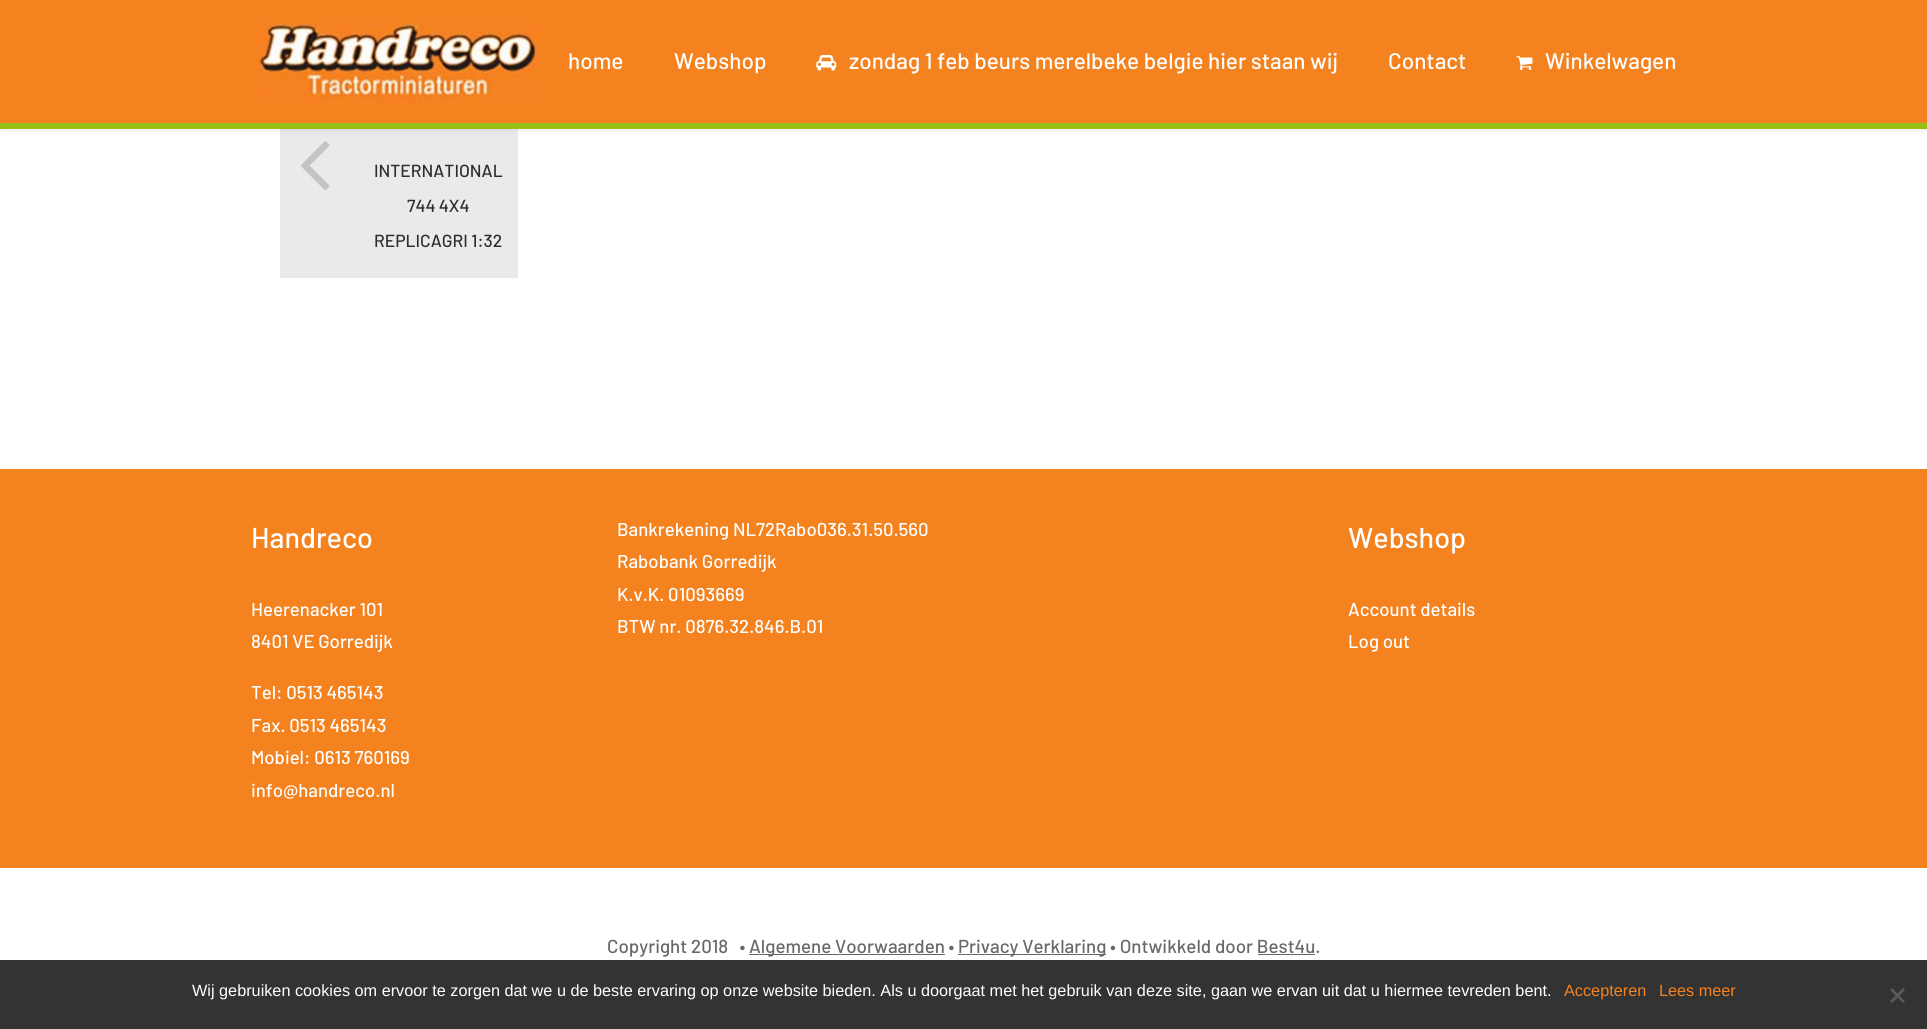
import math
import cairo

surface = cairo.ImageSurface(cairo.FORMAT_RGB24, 1927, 1029)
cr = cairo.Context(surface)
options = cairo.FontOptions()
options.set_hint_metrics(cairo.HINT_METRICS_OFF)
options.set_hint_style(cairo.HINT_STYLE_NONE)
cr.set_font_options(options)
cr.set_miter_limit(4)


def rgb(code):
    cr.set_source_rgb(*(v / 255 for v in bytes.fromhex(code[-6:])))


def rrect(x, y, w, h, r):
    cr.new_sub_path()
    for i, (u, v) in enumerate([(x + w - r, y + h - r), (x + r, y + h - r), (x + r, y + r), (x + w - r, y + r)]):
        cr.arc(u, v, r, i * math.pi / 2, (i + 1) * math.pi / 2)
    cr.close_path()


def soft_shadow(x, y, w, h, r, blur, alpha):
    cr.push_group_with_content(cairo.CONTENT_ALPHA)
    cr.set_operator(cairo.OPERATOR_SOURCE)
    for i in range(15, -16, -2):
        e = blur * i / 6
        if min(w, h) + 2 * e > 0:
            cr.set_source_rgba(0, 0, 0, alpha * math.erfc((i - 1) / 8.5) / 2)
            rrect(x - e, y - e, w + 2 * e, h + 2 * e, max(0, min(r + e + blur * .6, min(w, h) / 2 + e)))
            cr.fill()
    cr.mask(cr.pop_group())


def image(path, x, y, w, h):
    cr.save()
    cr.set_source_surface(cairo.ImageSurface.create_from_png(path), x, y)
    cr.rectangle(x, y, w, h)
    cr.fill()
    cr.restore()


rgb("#ffffff")
cr.paint()
rgb("#eaeaea")
cr.rectangle(280, 129, 238, 149)
cr.fill()
rgb("#000000")
soft_shadow(0, 1, 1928, 129, 0, 3, 0.09)
rgb("#f4821f")
cr.rectangle(0, 0, 1927, 123)
cr.fill()
rgb("#97bf15")
cr.rectangle(0, 123, 1927, 6)
cr.fill()
image("img/1.png", 252, 19, 288, 85)
image("img/2.png", 816, 55, 21, 16)
image("img/3.png", 1516, 56, 17, 14)
image("img/4.png", 301, 141, 29, 49)
for x, y, w, h, color in [
    (0, 469, 1927, 399, "#f4821f"),
    (749, 954, 196, 1, "#686869"),
    (958, 954, 148, 1, "#686869"),
    (1258, 954, 57, 1, "#686869"),
    (0, 960, 1927, 69, "#333333"),
]:
    rgb(color)
    cr.rectangle(x, y, w, h)
    cr.fill()
rgb("#5a5a5a")
cr.new_path()
cr.move_to(1903, 988)
cr.line_to(1905, 990)
cr.line_to(1892, 1003)
cr.line_to(1890, 1001.5)
cr.close_path()
cr.fill()
cr.new_path()
cr.move_to(1890, 990)
cr.line_to(1892, 988)
cr.line_to(1905, 1001.5)
cr.line_to(1903, 1003)
cr.close_path()
cr.fill()
cr.select_font_face("Barlow Medium")
cr.set_font_size(22.5)
rgb("#ffffff")
for x, y, s in [
    (568, 69, "home"),
    (674, 69, "Webshop"),
    (849, 69, "zondag 1 feb beurs merelbeke belgie hier staan wij"),
    (1388, 69, "Contact"),
    (1545, 69, "Winkelwagen"),
]:
    cr.move_to(x, y)
    cr.show_text(s)
cr.set_font_size(17.5)
rgb("#2d2d2d")
for x, y, s in [
    (374, 177, "INTERNATIONAL"),
    (407, 212, "744 4X4"),
    (374, 247, "REPLICAGRI 1:32"),
]:
    cr.move_to(x, y)
    cr.show_text(s)
cr.set_font_size(28.75)
rgb("#ffffff")
cr.move_to(251, 548)
cr.show_text("Handreco")
cr.set_font_size(18.6)
for x, y, s in [
    (251, 616, "Heerenacker 101"),
    (251, 648, "8401 VE Gorredijk"),
    (251, 699, "Tel: 0513 465143"),
    (251, 732, "Fax. 0513 465143"),
    (251, 764, "Mobiel: 0613 760169"),
    (251, 797, "info@handreco.nl"),
    (617, 536, "Bankrekening NL72Rabo036.31.50.560"),
    (617, 568, "Rabobank Gorredijk"),
    (617, 601, "K.v.K. 01093669"),
    (617, 633, "BTW nr. 0876.32.846.B.01"),
]:
    cr.move_to(x, y)
    cr.show_text(s)
cr.set_font_size(28.75)
cr.move_to(1348, 548)
cr.show_text("Webshop")
cr.set_font_size(18.6)
cr.move_to(1348, 616)
cr.show_text("Account details")
cr.move_to(1348, 648)
cr.show_text("Log out")
cr.set_font_size(18.75)
rgb("#686869")
for x, y, s in [
    (607, 953, "Copyright 2018   •"),
    (749, 953, "Algemene Voorwaarden •"),
    (958, 953, "Privacy Verklaring • Ontwikkeld door Best4u."),
]:
    cr.move_to(x, y)
    cr.show_text(s)
cr.select_font_face("Liberation Sans")
cr.set_font_size(16.25)
rgb("#ffffff")
cr.move_to(192, 996)
cr.show_text("Wij gebruiken cookies om ervoor te zorgen dat we u de beste ervaring op onze website bieden. Als u doorgaat met het gebruik van deze site, gaan we ervan uit dat u hiermee tevreden bent.")
rgb("#f4821f")
cr.move_to(1564, 996)
cr.show_text("Accepteren")
cr.move_to(1659, 996)
cr.show_text("Lees meer")
surface.write_to_png("page.png")
